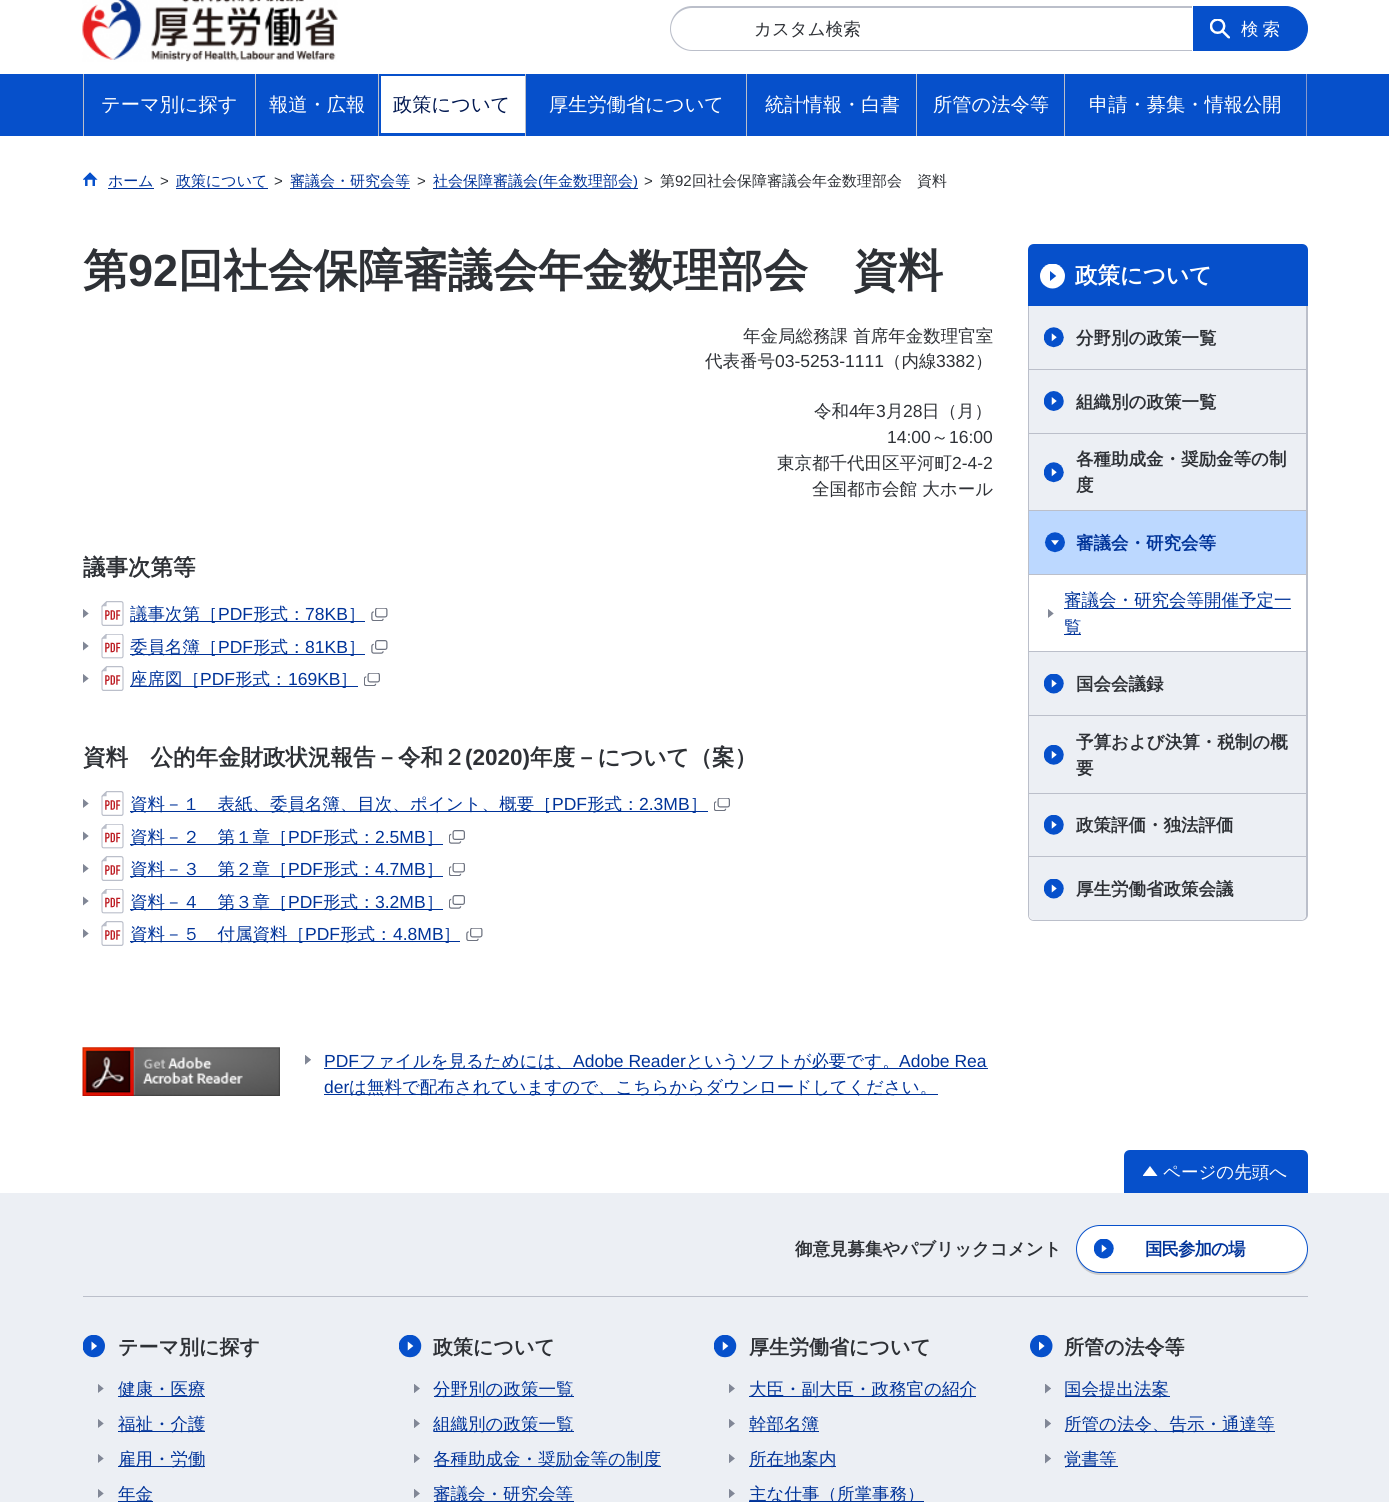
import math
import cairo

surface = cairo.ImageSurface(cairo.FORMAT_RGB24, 1389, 1502)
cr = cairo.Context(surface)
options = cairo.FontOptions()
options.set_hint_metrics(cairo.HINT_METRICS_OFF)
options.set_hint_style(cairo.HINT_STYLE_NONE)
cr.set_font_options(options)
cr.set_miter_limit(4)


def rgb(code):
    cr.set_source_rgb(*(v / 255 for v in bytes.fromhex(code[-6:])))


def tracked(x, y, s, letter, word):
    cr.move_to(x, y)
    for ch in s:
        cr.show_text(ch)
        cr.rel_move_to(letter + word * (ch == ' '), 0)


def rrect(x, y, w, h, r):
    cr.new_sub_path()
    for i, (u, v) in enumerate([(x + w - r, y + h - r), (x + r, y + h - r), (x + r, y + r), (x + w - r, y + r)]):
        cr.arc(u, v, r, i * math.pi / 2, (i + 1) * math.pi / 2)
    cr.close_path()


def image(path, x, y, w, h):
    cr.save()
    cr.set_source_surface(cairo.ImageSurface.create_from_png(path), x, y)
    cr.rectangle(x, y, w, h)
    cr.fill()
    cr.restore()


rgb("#ffffff")
cr.paint()
image("img/1.png", 82, 0, 256, 62)
rgb("#bbbfca")
cr.set_fill_rule(cairo.FILL_RULE_EVEN_ODD)
cr.new_path()
cr.move_to(692, 6)
cr.line_to(1192, 6)
cr.line_to(1192, 51)
cr.line_to(692, 51)
cr.curve_to(680, 51, 670, 41, 670, 29)
cr.curve_to(670, 16, 680, 6, 692, 6)
cr.close_path()
cr.move_to(692, 8)
cr.line_to(1192, 8)
cr.line_to(1192, 50)
cr.line_to(692, 50)
cr.curve_to(681, 50, 671, 40, 671, 29)
cr.curve_to(671, 17, 681, 8, 692, 8)
cr.close_path()
cr.fill()
rgb("#0650cb")
cr.new_path()
cr.move_to(1193.5, 6.5)
cr.line_to(1285.5, 6.5)
cr.curve_to(1297.5, 6.5, 1307.5, 16.5, 1307.5, 28.5)
cr.curve_to(1307.5, 40.5, 1297.5, 50.5, 1285.5, 50.5)
cr.line_to(1193.5, 50.5)
cr.close_path()
cr.fill_preserve()
cr.set_line_width(1)
cr.stroke()
image("img/2.png", 1210, 19, 20, 20)
for x, y, w, h, color in [
    (0, 74, 1389, 62, "#0650cb"),
    (83, 74, 1, 62, "#bbbfca"),
    (255, 74, 1, 62, "#bbbfca"),
    (378, 74, 1, 62, "#bbbfca"),
    (381, 76, 144, 57, "#ffffff"),
    (525, 74, 1, 62, "#bbbfca"),
    (746, 74, 1, 62, "#bbbfca"),
    (916, 74, 1, 62, "#bbbfca"),
    (1306, 74, 1, 62, "#8899cc"),
    (1064, 74, 1, 62, "#bbbfca"),
]:
    rgb(color)
    cr.rectangle(x, y, w, h)
    cr.fill()
image("img/3.png", 83, 172, 15, 14)
for x, y, w, h, color in [
    (108, 188, 46, 1, "#003399"),
    (176, 188, 92, 1, "#003399"),
    (290, 188, 120, 1, "#003399"),
    (433, 188, 205, 1, "#003399"),
]:
    rgb(color)
    cr.rectangle(x, y, w, h)
    cr.fill()
image("img/4.png", 83, 609, 6, 9)
image("img/5.png", 101, 601, 23, 25)
cr.rectangle(130, 621, 235, 1)
cr.fill()
image("img/6.png", 371, 608, 17, 13)
image("img/7.png", 83, 641, 6, 10)
image("img/8.png", 101, 634, 23, 25)
cr.rectangle(130, 654, 235, 1)
cr.fill()
image("img/9.png", 371, 640, 17, 14)
image("img/4.png", 83, 674, 6, 9)
image("img/5.png", 101, 666, 23, 25)
cr.rectangle(130, 686, 228, 1)
cr.fill()
image("img/10.png", 364, 673, 16, 13)
image("img/4.png", 83, 799, 6, 9)
image("img/5.png", 101, 791, 23, 25)
cr.rectangle(130, 811, 578, 1)
cr.fill()
image("img/10.png", 714, 798, 16, 13)
image("img/7.png", 83, 831, 6, 10)
image("img/8.png", 101, 824, 23, 25)
cr.rectangle(130, 844, 313, 1)
cr.fill()
image("img/11.png", 449, 830, 16, 14)
image("img/4.png", 83, 864, 6, 9)
image("img/5.png", 101, 856, 23, 25)
cr.rectangle(130, 876, 313, 1)
cr.fill()
image("img/10.png", 449, 863, 16, 13)
image("img/7.png", 83, 896, 6, 10)
image("img/12.png", 101, 889, 23, 25)
cr.rectangle(130, 909, 313, 1)
cr.fill()
image("img/11.png", 449, 895, 16, 14)
image("img/4.png", 83, 929, 6, 9)
image("img/5.png", 101, 921, 23, 25)
cr.rectangle(130, 941, 330, 1)
cr.fill()
image("img/6.png", 466, 928, 17, 13)
image("img/13.png", 82, 1047, 198, 49)
image("img/14.png", 305, 1055, 6, 10)
cr.rectangle(324, 1068, 664, 1)
cr.fill()
cr.rectangle(324, 1094, 614, 1)
cr.fill()
rgb("#0650cb")
cr.new_path()
cr.move_to(1034, 244)
cr.line_to(1302, 244)
cr.curve_to(1305.5, 244, 1308, 246.5, 1308, 250)
cr.line_to(1308, 306)
cr.line_to(1028, 306)
cr.line_to(1028, 250)
cr.curve_to(1028, 246.5, 1030.5, 244, 1034, 244)
cr.close_path()
cr.fill()
image("img/15.png", 1040, 264, 25, 25)
rgb("#bbbfca")
cr.new_path()
cr.move_to(1028, 306)
cr.line_to(1308, 306)
cr.line_to(1308, 915)
cr.curve_to(1308, 918, 1305, 921, 1301, 921)
cr.line_to(1034, 921)
cr.curve_to(1030, 921, 1028, 918, 1028, 915)
cr.close_path()
cr.move_to(1029, 306)
cr.line_to(1306, 306)
cr.line_to(1306, 915)
cr.curve_to(1306, 918, 1304, 920, 1301, 920)
cr.line_to(1034, 920)
cr.curve_to(1031, 920, 1029, 918, 1029, 915)
cr.close_path()
cr.fill()
rgb("#eceff4")
cr.rectangle(1029, 306, 277, 63)
cr.fill()
image("img/16.png", 1044, 327, 20, 21)
cr.rectangle(1029, 370, 277, 63)
cr.fill()
rgb("#bbbfca")
cr.rectangle(1029, 369, 277, 1)
cr.fill()
image("img/17.png", 1044, 391, 20, 20)
rgb("#eceff4")
cr.rectangle(1029, 434, 277, 76)
cr.fill()
rgb("#bbbfca")
cr.rectangle(1029, 433, 277, 1)
cr.fill()
image("img/16.png", 1044, 462, 20, 21)
cr.rectangle(1029, 510, 277, 1)
cr.fill()
rgb("#bcd8ff")
cr.rectangle(1029, 511, 277, 63)
cr.fill()
image("img/18.png", 1044, 532, 21, 21)
rgb("#bbbfca")
cr.rectangle(1029, 574, 277, 1)
cr.fill()
rgb("#003399")
cr.rectangle(1064, 608, 227, 1)
cr.fill()
image("img/4.png", 1048, 609, 6, 9)
for x, y, w, h, color in [
    (1064, 634, 17, 1, "#003399"),
    (1029, 652, 277, 63, "#eceff4"),
    (1029, 651, 277, 1, "#bbbfca"),
]:
    rgb(color)
    cr.rectangle(x, y, w, h)
    cr.fill()
image("img/19.png", 1044, 674, 20, 20)
rgb("#eceff4")
cr.rectangle(1029, 716, 277, 77)
cr.fill()
rgb("#bbbfca")
cr.rectangle(1029, 715, 277, 1)
cr.fill()
image("img/20.png", 1044, 745, 20, 20)
rgb("#eceff4")
cr.rectangle(1029, 794, 277, 62)
cr.fill()
rgb("#bbbfca")
cr.rectangle(1029, 793, 277, 1)
cr.fill()
image("img/20.png", 1044, 815, 20, 20)
rgb("#eceff4")
cr.new_path()
cr.move_to(1029, 856)
cr.line_to(1306, 856)
cr.line_to(1306, 914)
cr.curve_to(1306, 917.5, 1303.5, 920, 1300, 920)
cr.line_to(1035, 920)
cr.curve_to(1031.5, 920, 1029, 917.5, 1029, 914)
cr.close_path()
cr.fill()
rgb("#bbbfca")
cr.rectangle(1029, 856, 277, 1)
cr.fill()
image("img/19.png", 1044, 879, 20, 20)
rgb("#0650cb")
cr.new_path()
cr.move_to(1130, 1150)
cr.line_to(1302, 1150)
cr.curve_to(1305.5, 1150, 1308, 1152.5, 1308, 1156)
cr.line_to(1308, 1193)
cr.line_to(1124, 1193)
cr.line_to(1124, 1156)
cr.curve_to(1124, 1152.5, 1126.5, 1150, 1130, 1150)
cr.close_path()
cr.fill()
image("img/21.png", 1143, 1166, 15, 10)
rgb("#eceff4")
cr.rectangle(0, 1193, 1389, 309)
cr.fill()
rgb("#bbbfca")
cr.rectangle(83, 1296, 1225, 1)
cr.fill()
rgb("#cccccc")
cr.set_fill_rule(cairo.FILL_RULE_WINDING)
cr.new_path()
cr.move_to(1076, 1248)
cr.line_to(1076, 1252)
cr.curve_to(1076, 1264, 1087, 1275, 1100, 1275)
cr.line_to(1284, 1275)
cr.curve_to(1297, 1275, 1308, 1264, 1308, 1252)
cr.line_to(1307, 1246)
cr.line_to(1308, 1249)
cr.curve_to(1308, 1262, 1297, 1272, 1284, 1272)
cr.line_to(1100, 1272)
cr.curve_to(1087, 1272, 1076, 1262, 1076, 1249)
cr.close_path()
cr.fill()
rgb("#ffffff")
rrect(1076.5, 1225.5, 231, 47, 23.5)
cr.fill_preserve()
rgb("#0650cb")
cr.stroke()
image("img/22.png", 1094, 1239, 20, 20)
image("img/23.png", 83, 1335, 22, 23)
image("img/24.png", 98, 1384, 6, 9)
rgb("#003399")
cr.rectangle(118, 1396, 87, 1)
cr.fill()
image("img/25.png", 98, 1419, 6, 9)
cr.rectangle(118, 1431, 87, 1)
cr.fill()
image("img/24.png", 98, 1454, 6, 9)
cr.rectangle(118, 1466, 87, 1)
cr.fill()
image("img/24.png", 98, 1489, 6, 9)
cr.rectangle(118, 1501, 35, 1)
cr.fill()
image("img/26.png", 399, 1335, 23, 23)
image("img/27.png", 414, 1384, 6, 9)
cr.rectangle(434, 1396, 140, 1)
cr.fill()
image("img/28.png", 414, 1419, 6, 9)
cr.rectangle(434, 1431, 140, 1)
cr.fill()
image("img/27.png", 414, 1454, 6, 9)
cr.rectangle(434, 1466, 227, 1)
cr.fill()
image("img/27.png", 414, 1489, 6, 9)
cr.rectangle(434, 1501, 140, 1)
cr.fill()
image("img/26.png", 714, 1335, 23, 23)
image("img/27.png", 729, 1384, 6, 9)
cr.rectangle(749, 1396, 227, 1)
cr.fill()
image("img/28.png", 729, 1419, 6, 9)
cr.rectangle(749, 1431, 70, 1)
cr.fill()
image("img/27.png", 729, 1454, 6, 9)
cr.rectangle(749, 1466, 87, 1)
cr.fill()
image("img/27.png", 729, 1489, 6, 9)
cr.rectangle(749, 1501, 175, 1)
cr.fill()
image("img/29.png", 1030, 1335, 23, 23)
image("img/30.png", 1045, 1384, 6, 10)
cr.rectangle(1065, 1396, 105, 1)
cr.fill()
image("img/31.png", 1045, 1419, 6, 10)
cr.rectangle(1065, 1431, 210, 1)
cr.fill()
image("img/30.png", 1045, 1454, 6, 10)
cr.rectangle(1065, 1466, 53, 1)
cr.fill()
cr.select_font_face("WenQuanYi Zen Hei Medium")
cr.set_font_size(17.5)
rgb("#2e3136")
cr.move_to(754, 35)
cr.show_text("カスタム検索")
rgb("#ffffff")
tracked(1241, 35, "検索", 4, 0)
cr.set_font_size(19.25)
cr.move_to(101, 111)
cr.show_text("テーマ別に探す")
cr.move_to(269, 111)
cr.show_text("報道・広報")
rgb("#001750")
cr.move_to(393, 111)
cr.show_text("政策について")
rgb("#ffffff")
for x, y, s in [
    (549, 111, "厚生労働省について"),
    (765, 111, "統計情報・白書"),
    (933, 111, "所管の法令等"),
    (1089, 111, "申請・募集・情報公開"),
]:
    cr.move_to(x, y)
    cr.show_text(s)
cr.set_font_size(15)
rgb("#003399")
cr.move_to(108, 186)
cr.show_text("ホーム")
cr.select_font_face("Liberation Sans")
rgb("#2e3136")
cr.move_to(160, 186)
cr.show_text(">")
cr.select_font_face("WenQuanYi Zen Hei Medium")
rgb("#003399")
cr.move_to(176, 186)
cr.show_text("政策について")
cr.select_font_face("Liberation Sans")
rgb("#2e3136")
cr.move_to(274, 186)
cr.show_text(">")
cr.select_font_face("WenQuanYi Zen Hei Medium")
rgb("#003399")
cr.move_to(290, 186)
cr.show_text("審議会・研究会等")
cr.select_font_face("Liberation Sans")
rgb("#2e3136")
cr.move_to(417, 186)
cr.show_text(">")
cr.select_font_face("WenQuanYi Zen Hei Medium")
rgb("#003399")
cr.move_to(433, 186)
cr.show_text("社会保障審議会")
cr.select_font_face("Liberation Sans")
cr.move_to(538, 186)
cr.show_text("(")
cr.select_font_face("WenQuanYi Zen Hei Medium")
cr.move_to(543, 186)
cr.show_text("年金数理部会")
cr.select_font_face("Liberation Sans")
cr.move_to(633, 186)
cr.show_text(")")
rgb("#2e3136")
cr.move_to(644, 186)
cr.show_text(">")
cr.select_font_face("WenQuanYi Zen Hei Medium")
cr.move_to(660, 186)
cr.show_text("第")
cr.select_font_face("Liberation Sans")
cr.move_to(675, 186)
cr.show_text("92")
cr.select_font_face("WenQuanYi Zen Hei Medium")
cr.move_to(692, 186)
cr.show_text("回社会保障審議会年金数理部会　資料")
cr.select_font_face("WenQuanYi Zen Hei", cairo.FONT_SLANT_NORMAL, cairo.FONT_WEIGHT_BOLD)
cr.set_font_size(45)
cr.move_to(83, 286)
cr.show_text("第")
cr.select_font_face("Liberation Sans", cairo.FONT_SLANT_NORMAL, cairo.FONT_WEIGHT_BOLD)
cr.move_to(128, 286)
cr.show_text("92")
cr.select_font_face("WenQuanYi Zen Hei", cairo.FONT_SLANT_NORMAL, cairo.FONT_WEIGHT_BOLD)
cr.move_to(178, 286)
cr.show_text("回社会保障審議会年金数理部会　資料")
cr.select_font_face("WenQuanYi Zen Hei Medium")
cr.set_font_size(17.5)
cr.move_to(743, 342)
cr.show_text("年金局総務課 首席年金数理官室")
cr.move_to(705, 367)
cr.show_text("代表番号")
cr.select_font_face("Liberation Sans")
cr.move_to(775, 367)
cr.show_text("03-5253-1111")
cr.select_font_face("WenQuanYi Zen Hei Medium")
cr.move_to(884, 367)
cr.show_text("（内線")
cr.select_font_face("Liberation Sans")
cr.move_to(936, 367)
cr.show_text("3382")
cr.select_font_face("WenQuanYi Zen Hei Medium")
cr.move_to(975, 367)
cr.show_text("）")
cr.move_to(814, 417)
cr.show_text("令和")
cr.select_font_face("Liberation Sans")
cr.move_to(849, 417)
cr.show_text("4")
cr.select_font_face("WenQuanYi Zen Hei Medium")
cr.move_to(858, 417)
cr.show_text("年")
cr.select_font_face("Liberation Sans")
cr.move_to(876, 417)
cr.show_text("3")
cr.select_font_face("WenQuanYi Zen Hei Medium")
cr.move_to(886, 417)
cr.show_text("月")
cr.select_font_face("Liberation Sans")
cr.move_to(903, 417)
cr.show_text("28")
cr.select_font_face("WenQuanYi Zen Hei Medium")
cr.move_to(922, 417)
cr.show_text("日（月）")
cr.select_font_face("Liberation Sans")
cr.move_to(887, 443)
cr.show_text("14:00")
cr.select_font_face("WenQuanYi Zen Hei Medium")
cr.move_to(931, 443)
cr.show_text("～")
cr.select_font_face("Liberation Sans")
cr.move_to(949, 443)
cr.show_text("16:00")
cr.select_font_face("WenQuanYi Zen Hei Medium")
cr.move_to(777, 469)
cr.show_text("東京都千代田区平河町")
cr.select_font_face("Liberation Sans")
cr.move_to(952, 469)
cr.show_text("2-4-2")
cr.select_font_face("WenQuanYi Zen Hei Medium")
cr.move_to(812, 495)
cr.show_text("全国都市会館 大ホール")
cr.select_font_face("WenQuanYi Zen Hei", cairo.FONT_SLANT_NORMAL, cairo.FONT_WEIGHT_BOLD)
cr.set_font_size(22.5)
cr.move_to(83, 575)
cr.show_text("議事次第等")
cr.select_font_face("WenQuanYi Zen Hei Medium")
cr.set_font_size(17.5)
rgb("#003399")
cr.move_to(130, 620)
cr.show_text("議事次第［")
cr.select_font_face("Liberation Sans")
cr.move_to(218, 620)
cr.show_text("PDF")
cr.select_font_face("WenQuanYi Zen Hei Medium")
cr.move_to(253, 620)
cr.show_text("形式：")
cr.select_font_face("Liberation Sans")
cr.move_to(305, 620)
cr.show_text("78KB")
cr.select_font_face("WenQuanYi Zen Hei Medium")
cr.move_to(348, 620)
cr.show_text("］")
cr.move_to(130, 653)
cr.show_text("委員名簿［")
cr.select_font_face("Liberation Sans")
cr.move_to(218, 653)
cr.show_text("PDF")
cr.select_font_face("WenQuanYi Zen Hei Medium")
cr.move_to(253, 653)
cr.show_text("形式：")
cr.select_font_face("Liberation Sans")
cr.move_to(305, 653)
cr.show_text("81KB")
cr.select_font_face("WenQuanYi Zen Hei Medium")
cr.move_to(348, 653)
cr.show_text("］")
cr.move_to(130, 685)
cr.show_text("座席図［")
cr.select_font_face("Liberation Sans")
cr.move_to(200, 685)
cr.show_text("PDF")
cr.select_font_face("WenQuanYi Zen Hei Medium")
cr.move_to(235, 685)
cr.show_text("形式：")
cr.select_font_face("Liberation Sans")
cr.move_to(288, 685)
cr.show_text("169KB")
cr.select_font_face("WenQuanYi Zen Hei Medium")
cr.move_to(340, 685)
cr.show_text("］")
cr.select_font_face("WenQuanYi Zen Hei", cairo.FONT_SLANT_NORMAL, cairo.FONT_WEIGHT_BOLD)
cr.set_font_size(22.5)
rgb("#2e3136")
cr.move_to(83, 765)
cr.show_text("資料　公的年金財政状況報告－令和２")
cr.select_font_face("Liberation Sans", cairo.FONT_SLANT_NORMAL, cairo.FONT_WEIGHT_BOLD)
cr.move_to(465, 765)
cr.show_text("(2020)")
cr.select_font_face("WenQuanYi Zen Hei", cairo.FONT_SLANT_NORMAL, cairo.FONT_WEIGHT_BOLD)
cr.move_to(530, 765)
cr.show_text("年度－について（案）")
cr.select_font_face("WenQuanYi Zen Hei Medium")
cr.set_font_size(17.5)
rgb("#003399")
cr.move_to(130, 810)
cr.show_text("資料－１　表紙、委員名簿、目次、ポイント、概要［")
cr.select_font_face("Liberation Sans")
cr.move_to(552, 810)
cr.show_text("PDF")
cr.select_font_face("WenQuanYi Zen Hei Medium")
cr.move_to(587, 810)
cr.show_text("形式：")
cr.select_font_face("Liberation Sans")
cr.move_to(639, 810)
cr.show_text("2.3MB")
cr.select_font_face("WenQuanYi Zen Hei Medium")
cr.move_to(690, 810)
cr.show_text("］")
cr.move_to(130, 843)
cr.show_text("資料－２　第１章［")
cr.select_font_face("Liberation Sans")
cr.move_to(288, 843)
cr.show_text("PDF")
cr.select_font_face("WenQuanYi Zen Hei Medium")
cr.move_to(323, 843)
cr.show_text("形式：")
cr.select_font_face("Liberation Sans")
cr.move_to(375, 843)
cr.show_text("2.5MB")
cr.select_font_face("WenQuanYi Zen Hei Medium")
cr.move_to(426, 843)
cr.show_text("］")
cr.move_to(130, 875)
cr.show_text("資料－３　第２章［")
cr.select_font_face("Liberation Sans")
cr.move_to(288, 875)
cr.show_text("PDF")
cr.select_font_face("WenQuanYi Zen Hei Medium")
cr.move_to(323, 875)
cr.show_text("形式：")
cr.select_font_face("Liberation Sans")
cr.move_to(375, 875)
cr.show_text("4.7MB")
cr.select_font_face("WenQuanYi Zen Hei Medium")
cr.move_to(426, 875)
cr.show_text("］")
cr.move_to(130, 908)
cr.show_text("資料－４　第３章［")
cr.select_font_face("Liberation Sans")
cr.move_to(288, 908)
cr.show_text("PDF")
cr.select_font_face("WenQuanYi Zen Hei Medium")
cr.move_to(323, 908)
cr.show_text("形式：")
cr.select_font_face("Liberation Sans")
cr.move_to(375, 908)
cr.show_text("3.2MB")
cr.select_font_face("WenQuanYi Zen Hei Medium")
cr.move_to(426, 908)
cr.show_text("］")
cr.move_to(130, 940)
cr.show_text("資料－５　付属資料［")
cr.select_font_face("Liberation Sans")
cr.move_to(305, 940)
cr.show_text("PDF")
cr.select_font_face("WenQuanYi Zen Hei Medium")
cr.move_to(340, 940)
cr.show_text("形式：")
cr.select_font_face("Liberation Sans")
cr.move_to(393, 940)
cr.show_text("4.8MB")
cr.select_font_face("WenQuanYi Zen Hei Medium")
cr.move_to(443, 940)
cr.show_text("］")
cr.select_font_face("Liberation Sans")
cr.move_to(324, 1067)
cr.show_text("PDF")
cr.select_font_face("WenQuanYi Zen Hei Medium")
cr.move_to(359, 1067)
cr.show_text("ファイルを見るためには、")
cr.select_font_face("Liberation Sans")
cr.move_to(573, 1067)
cr.show_text("Adobe Reader")
cr.select_font_face("WenQuanYi Zen Hei Medium")
cr.move_to(686, 1067)
cr.show_text("というソフトが必要です。")
cr.select_font_face("Liberation Sans")
cr.move_to(899, 1067)
cr.show_text("Adobe Rea")
cr.move_to(324, 1093)
cr.show_text("der")
cr.select_font_face("WenQuanYi Zen Hei Medium")
cr.move_to(349, 1093)
cr.show_text("は無料で配布されていますので、こちらからダウンロードしてください。")
cr.select_font_face("WenQuanYi Zen Hei", cairo.FONT_SLANT_NORMAL, cairo.FONT_WEIGHT_BOLD)
cr.set_font_size(22.5)
rgb("#ffffff")
cr.move_to(1075, 283)
cr.show_text("政策について")
cr.set_font_size(17.5)
rgb("#2e3136")
for x, y, s in [
    (1076, 344, "分野別の政策一覧"),
    (1076, 408, "組織別の政策一覧"),
    (1076, 465, "各種助成金・奨励金等の制"),
    (1076, 491, "度"),
]:
    cr.move_to(x, y)
    cr.show_text(s)
rgb("#003399")
cr.move_to(1076, 549)
cr.show_text("審議会・研究会等")
cr.select_font_face("WenQuanYi Zen Hei Medium")
cr.move_to(1064, 606)
cr.show_text("審議会・研究会等開催予定一")
cr.move_to(1064, 633)
cr.show_text("覧")
cr.select_font_face("WenQuanYi Zen Hei", cairo.FONT_SLANT_NORMAL, cairo.FONT_WEIGHT_BOLD)
rgb("#2e3136")
for x, y, s in [
    (1076, 690, "国会会議録"),
    (1076, 748, "予算および決算・税制の概"),
    (1076, 774, "要"),
    (1076, 831, "政策評価・独法評価"),
    (1076, 895, "厚生労働省政策会議"),
]:
    cr.move_to(x, y)
    cr.show_text(s)
cr.select_font_face("WenQuanYi Zen Hei Medium")
rgb("#ffffff")
cr.move_to(1163, 1178)
cr.show_text("ページの先頭へ")
cr.select_font_face("WenQuanYi Zen Hei", cairo.FONT_SLANT_NORMAL, cairo.FONT_WEIGHT_BOLD)
rgb("#2e3136")
cr.move_to(795, 1255)
cr.show_text("御意見募集やパブリックコメント")
rgb("#003399")
tracked(1145, 1255, "国民参加の場", -1, 0)
cr.set_font_size(20)
rgb("#2e3136")
cr.move_to(118, 1354)
cr.show_text("テーマ別に探す")
cr.select_font_face("WenQuanYi Zen Hei Medium")
cr.set_font_size(17.5)
rgb("#003399")
for x, y, s in [
    (118, 1395, "健康・医療"),
    (118, 1430, "福祉・介護"),
    (118, 1465, "雇用・労働"),
    (118, 1500, "年金"),
]:
    cr.move_to(x, y)
    cr.show_text(s)
cr.select_font_face("WenQuanYi Zen Hei", cairo.FONT_SLANT_NORMAL, cairo.FONT_WEIGHT_BOLD)
cr.set_font_size(20)
rgb("#2e3136")
cr.move_to(433, 1354)
cr.show_text("政策について")
cr.select_font_face("WenQuanYi Zen Hei Medium")
cr.set_font_size(17.5)
rgb("#003399")
for x, y, s in [
    (433, 1395, "分野別の政策一覧"),
    (433, 1430, "組織別の政策一覧"),
    (433, 1465, "各種助成金・奨励金等の制度"),
    (433, 1500, "審議会・研究会等"),
]:
    cr.move_to(x, y)
    cr.show_text(s)
cr.select_font_face("WenQuanYi Zen Hei", cairo.FONT_SLANT_NORMAL, cairo.FONT_WEIGHT_BOLD)
cr.set_font_size(20)
rgb("#2e3136")
cr.move_to(749, 1354)
cr.show_text("厚生労働省について")
cr.select_font_face("WenQuanYi Zen Hei Medium")
cr.set_font_size(17.5)
rgb("#003399")
for x, y, s in [
    (749, 1395, "大臣・副大臣・政務官の紹介"),
    (749, 1430, "幹部名簿"),
    (749, 1465, "所在地案内"),
    (749, 1500, "主な仕事（所掌事務）"),
]:
    cr.move_to(x, y)
    cr.show_text(s)
cr.select_font_face("WenQuanYi Zen Hei", cairo.FONT_SLANT_NORMAL, cairo.FONT_WEIGHT_BOLD)
cr.set_font_size(20)
rgb("#2e3136")
cr.move_to(1064, 1354)
cr.show_text("所管の法令等")
cr.select_font_face("WenQuanYi Zen Hei Medium")
cr.set_font_size(17.5)
rgb("#003399")
for x, y, s in [
    (1064, 1395, "国会提出法案"),
    (1064, 1430, "所管の法令、告示・通達等"),
    (1064, 1465, "覚書等"),
]:
    cr.move_to(x, y)
    cr.show_text(s)
surface.write_to_png("page.png")
